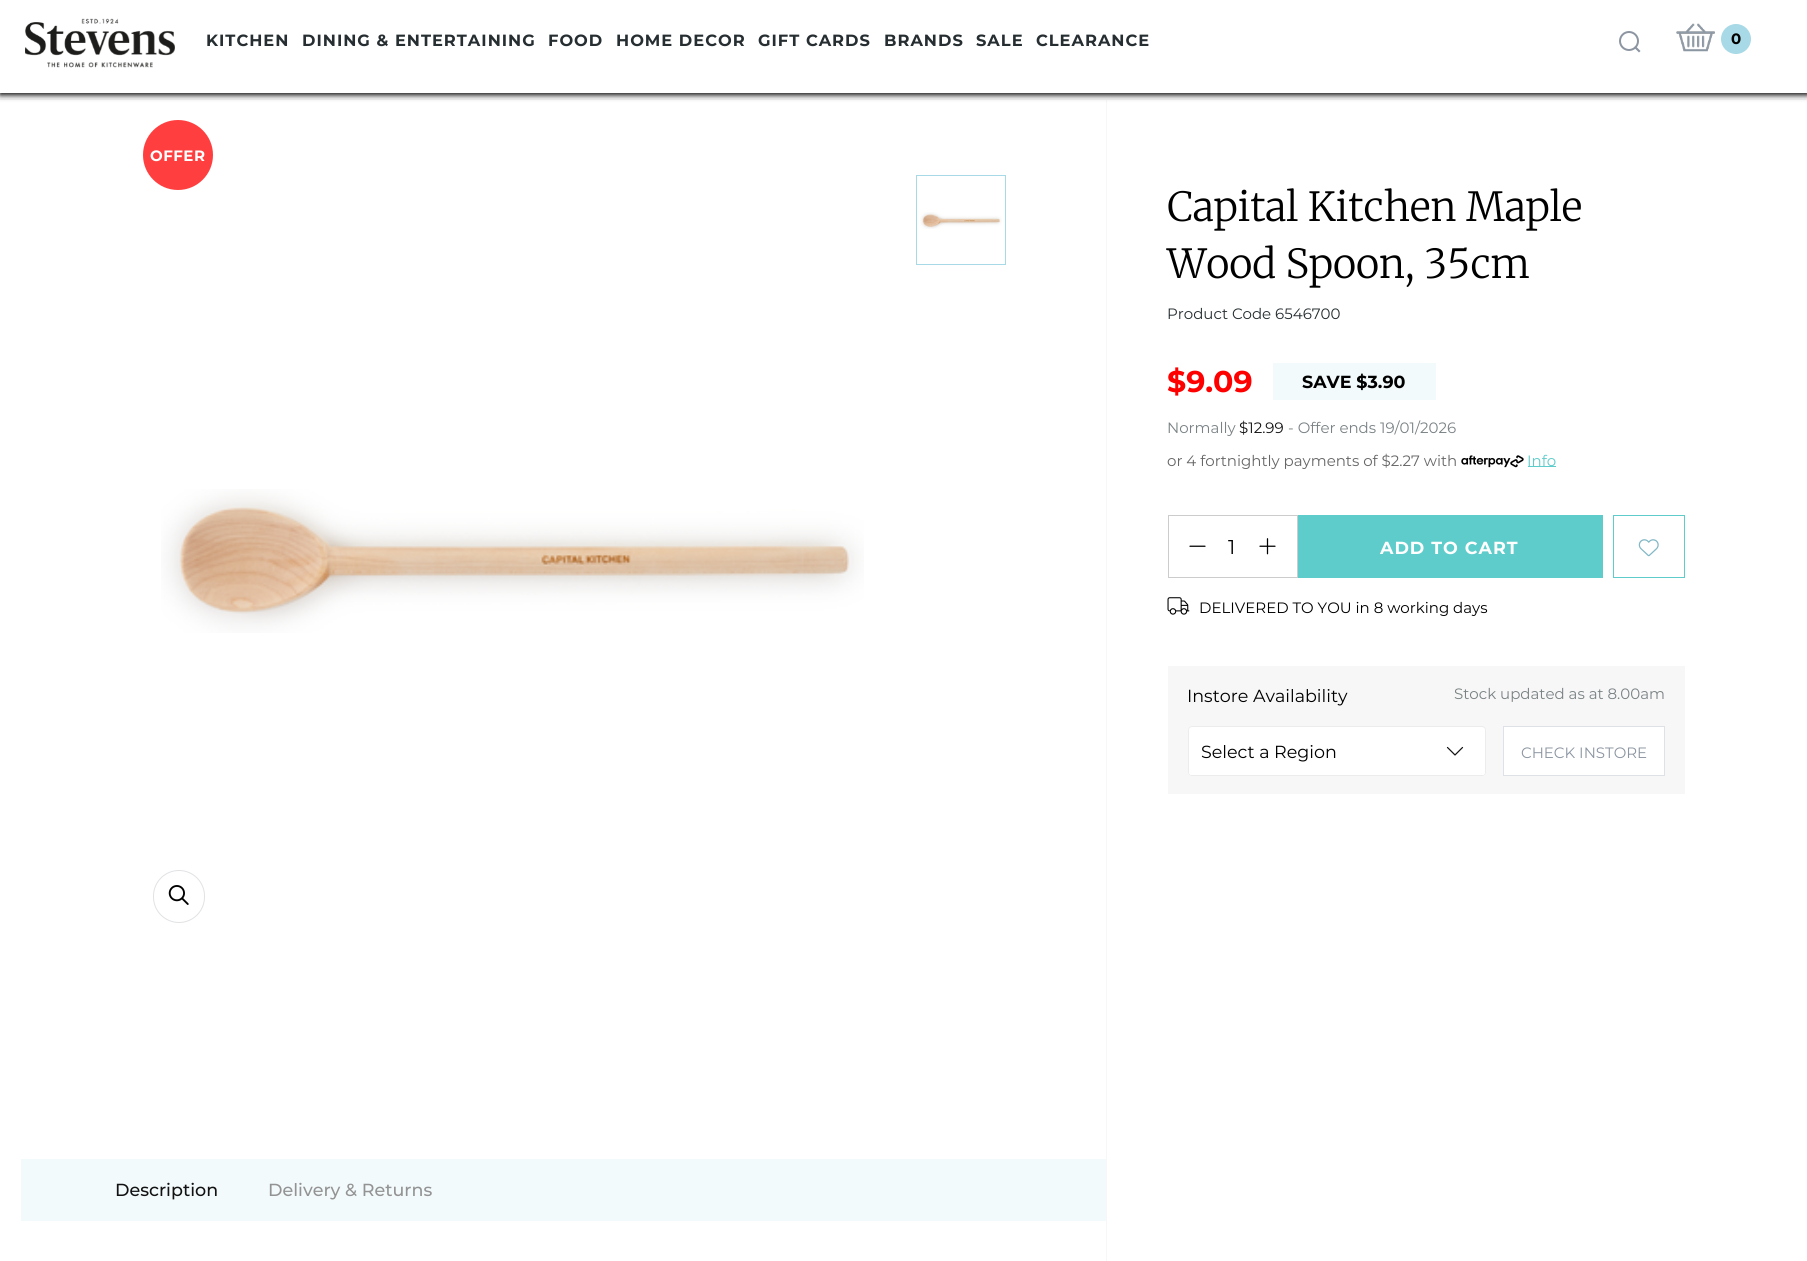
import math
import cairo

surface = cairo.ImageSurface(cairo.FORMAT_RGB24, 1807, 1261)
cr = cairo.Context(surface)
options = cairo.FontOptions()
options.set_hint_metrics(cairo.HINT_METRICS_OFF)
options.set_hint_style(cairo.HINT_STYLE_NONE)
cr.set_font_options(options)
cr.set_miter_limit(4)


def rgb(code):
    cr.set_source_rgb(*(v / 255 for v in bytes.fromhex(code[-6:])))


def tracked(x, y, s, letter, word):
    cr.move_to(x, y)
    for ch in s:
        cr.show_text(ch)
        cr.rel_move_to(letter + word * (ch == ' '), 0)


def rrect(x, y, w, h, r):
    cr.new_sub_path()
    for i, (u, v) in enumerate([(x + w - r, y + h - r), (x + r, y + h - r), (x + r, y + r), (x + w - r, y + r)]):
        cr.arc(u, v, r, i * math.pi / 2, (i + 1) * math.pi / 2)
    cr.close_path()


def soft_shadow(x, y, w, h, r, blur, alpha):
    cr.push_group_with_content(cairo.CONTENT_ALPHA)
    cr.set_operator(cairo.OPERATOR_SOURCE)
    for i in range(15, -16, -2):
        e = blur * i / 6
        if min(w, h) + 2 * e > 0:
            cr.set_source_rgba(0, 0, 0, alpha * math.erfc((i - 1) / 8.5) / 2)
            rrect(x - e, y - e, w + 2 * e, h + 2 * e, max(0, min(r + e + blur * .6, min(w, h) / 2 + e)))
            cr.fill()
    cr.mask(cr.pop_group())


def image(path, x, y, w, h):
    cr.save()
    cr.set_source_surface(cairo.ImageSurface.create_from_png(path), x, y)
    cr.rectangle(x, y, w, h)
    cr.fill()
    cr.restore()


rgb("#ffffff")
cr.paint()
rgb("#f7f7f7")
cr.rectangle(0, 99, 1807, 1)
cr.fill()
cr.rectangle(1106, 100, 1, 1161)
cr.fill()
rgb("#000000")
soft_shadow(0, 3, 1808, 92, 0, 3, 1)
rgb("#ffffff")
cr.rectangle(0, 0, 1807, 93)
cr.fill()
image("img/1.png", 25, 18, 150, 50)
cr.arc(1629, 41, 9, 0, 2 * math.pi)
rgb("#8c95a1")
cr.stroke()
cr.new_path()
cr.move_to(1635.5, 46)
cr.line_to(1640.5, 51)
cr.line_to(1639, 52.5)
cr.line_to(1634, 47.5)
cr.close_path()
cr.fill()
image("img/2.png", 1676, 23, 39, 29)
rgb("#a8d9e6")
cr.arc(1736, 39, 15, 0, 2 * math.pi)
cr.fill()
rgb("#ff3f3f")
cr.arc(178, 155, 35, 0, 2 * math.pi)
cr.fill()
cr.rectangle(916.5, 175.5, 89, 89)
rgb("#a8d9e6")
cr.set_line_width(1)
cr.stroke()
image("img/3.png", 920, 212, 82, 17)
image("img/4.png", 161, 489, 703, 144)
rrect(153.5, 870.5, 51, 52, 25.5)
rgb("#e0e2e4")
cr.stroke()
image("img/5.png", 168, 885, 21, 20)
rgb("#f3fafc")
cr.rectangle(1273, 363, 163, 37)
cr.fill()
image("img/6.png", 1461, 455, 63, 13)
rgb("#5dccca")
cr.rectangle(1528, 466, 28, 1)
cr.fill()
cr.rectangle(1168.5, 515.5, 129, 62)
rgb("#cccccc")
cr.stroke()
image("img/7.png", 1189, 545, 17, 2)
image("img/8.png", 1259, 538, 17, 17)
rgb("#5dccca")
cr.rectangle(1298, 515, 305, 63)
cr.fill()
cr.rectangle(1613.5, 515.5, 71, 62)
cr.stroke()
image("img/9.png", 1638, 539, 21, 18)
image("img/10.png", 1167, 597, 23, 18)
rgb("#f7f7f7")
cr.rectangle(1168, 666, 517, 128)
cr.fill()
rgb("#ffffff")
rrect(1188.5, 726.5, 297, 49, 3.5)
cr.fill_preserve()
rgb("#ececec")
cr.stroke()
rgb("#ffffff")
rrect(1189, 728, 296, 47, 2.5)
cr.fill()
image("img/11.png", 1446, 746, 18, 10)
cr.rectangle(1503.5, 726.5, 161, 49)
cr.fill_preserve()
rgb("#dee2e6")
cr.stroke()
rgb("#f3fafc")
cr.rectangle(21, 1159, 1085, 62)
cr.fill()
cr.select_font_face("Montserrat", cairo.FONT_SLANT_NORMAL, cairo.FONT_WEIGHT_BOLD)
cr.set_font_size(16.25)
rgb("#262e31")
for x, y, s in [
    (206, 46, "KITCHEN"),
    (302, 46, "DINING & ENTERTAINING"),
    (548, 46, "FOOD"),
    (616, 46, "HOME DECOR"),
    (758, 46, "GIFT CARDS"),
    (884, 46, "BRANDS"),
    (976, 46, "SALE"),
    (1036, 46, "CLEARANCE"),
]:
    tracked(x, y, s, 1, 0)
cr.set_font_size(15)
rgb("#000000")
tracked(1731, 44, "0", 1, 0)
rgb("#ffffff")
tracked(150, 161, "OFFER", 0.5, 0)
cr.select_font_face("Merriweather Light")
cr.set_font_size(40)
rgb("#000000")
cr.move_to(1167, 221)
cr.show_text("Capital Kitchen Maple")
cr.move_to(1167, 278)
cr.show_text("Wood Spoon, 35cm")
cr.select_font_face("Montserrat")
cr.set_font_size(15)
rgb("#262e31")
cr.move_to(1167, 319)
cr.show_text("Product Code 6546700")
cr.select_font_face("Montserrat", cairo.FONT_SLANT_NORMAL, cairo.FONT_WEIGHT_BOLD)
cr.set_font_size(30)
rgb("#ff0000")
cr.move_to(1167, 392)
cr.show_text("$9.09")
cr.set_font_size(17.5)
rgb("#000000")
cr.move_to(1302, 388)
cr.show_text("SAVE $3.90")
cr.select_font_face("Montserrat")
cr.set_font_size(15)
rgb("#7a8285")
cr.move_to(1167, 433)
cr.show_text("Normally")
rgb("#121212")
cr.move_to(1239, 433)
cr.show_text("$12.99")
rgb("#7a8285")
cr.move_to(1288, 433)
cr.show_text("- Offer ends 19/01/2026")
rgb("#666666")
cr.move_to(1167, 466)
cr.show_text("or 4 fortnightly payments of $2.27 with")
rgb("#5dccca")
cr.move_to(1527, 466)
cr.show_text("Info")
cr.set_font_size(20)
rgb("#000000")
cr.move_to(1228, 554)
cr.show_text("1")
cr.select_font_face("Montserrat", cairo.FONT_SLANT_NORMAL, cairo.FONT_WEIGHT_BOLD)
cr.set_font_size(17.5)
rgb("#ffffff")
tracked(1380, 554, "ADD TO CART", 1, 0)
cr.select_font_face("Montserrat")
cr.set_font_size(15)
rgb("#000000")
cr.move_to(1199, 613)
cr.show_text("DELIVERED TO YOU in 8 working days")
cr.set_font_size(17.5)
cr.move_to(1187, 702)
cr.show_text("Instore Availability")
cr.set_font_size(15)
rgb("#7a8285")
cr.move_to(1454, 699)
cr.show_text("Stock updated as at 8.00am")
cr.set_font_size(17.5)
rgb("#000000")
cr.move_to(1201, 758)
cr.show_text("Select a Region")
cr.set_font_size(15)
rgb("#8c95a1")
cr.move_to(1521, 758)
cr.show_text("CHECK INSTORE")
cr.select_font_face("Montserrat Medium")
cr.set_font_size(17.5)
rgb("#121212")
cr.move_to(115, 1196)
cr.show_text("Description")
rgb("#939393")
cr.move_to(268, 1196)
cr.show_text("Delivery & Returns")
surface.write_to_png("page.png")
